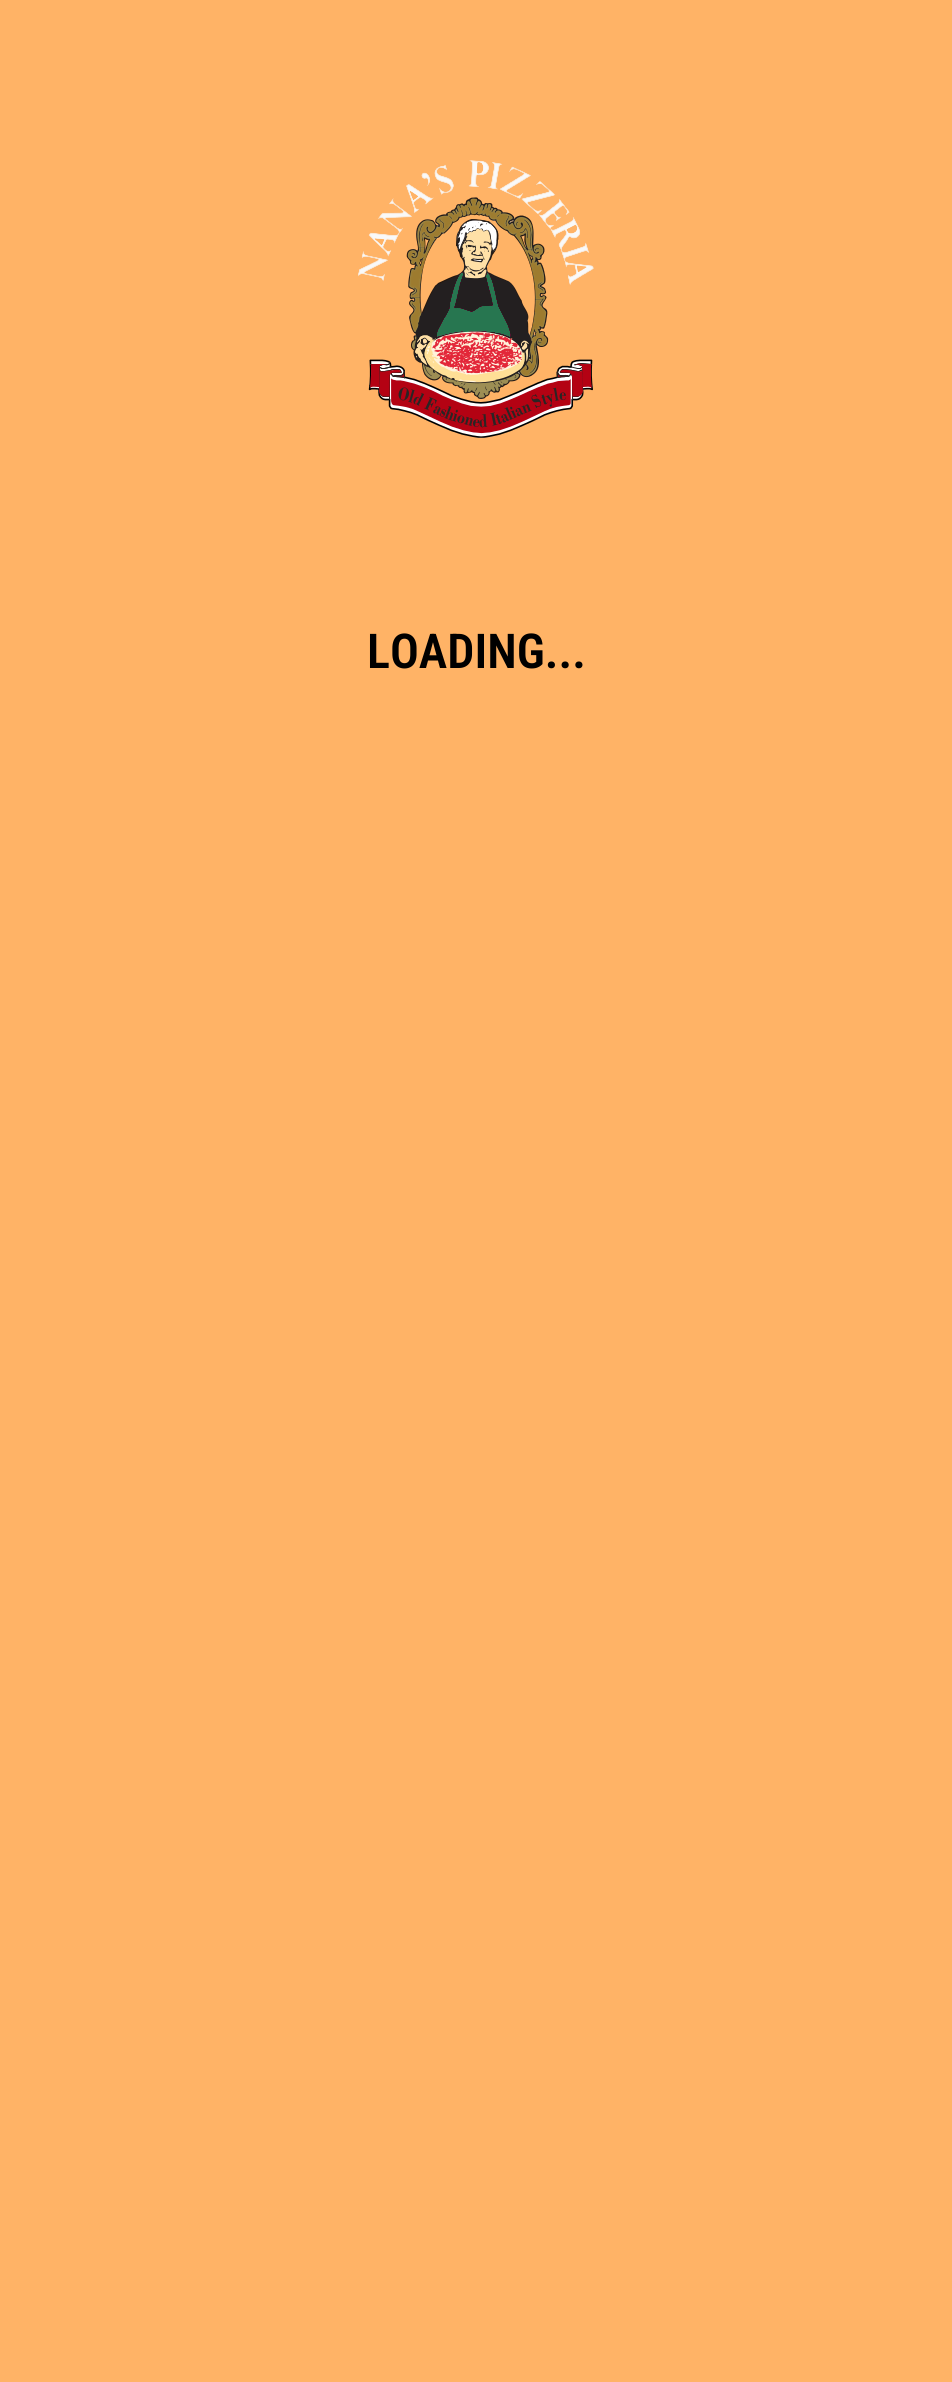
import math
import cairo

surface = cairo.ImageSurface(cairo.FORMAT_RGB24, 952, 2382)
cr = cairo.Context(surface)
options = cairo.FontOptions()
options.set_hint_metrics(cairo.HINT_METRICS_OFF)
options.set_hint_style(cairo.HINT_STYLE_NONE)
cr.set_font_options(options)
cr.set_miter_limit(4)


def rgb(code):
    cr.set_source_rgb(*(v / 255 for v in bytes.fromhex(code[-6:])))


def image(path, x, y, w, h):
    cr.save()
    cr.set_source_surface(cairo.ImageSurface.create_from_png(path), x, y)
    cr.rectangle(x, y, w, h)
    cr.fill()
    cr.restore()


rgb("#ffb366")
cr.paint()
image("img/1.png", 358, 160, 236, 278)
cr.select_font_face("Roboto Condensed SemiBold")
cr.set_font_size(48)
rgb("#000000")
cr.move_to(367, 668)
cr.show_text("LOADING...")
surface.write_to_png("page.png")
